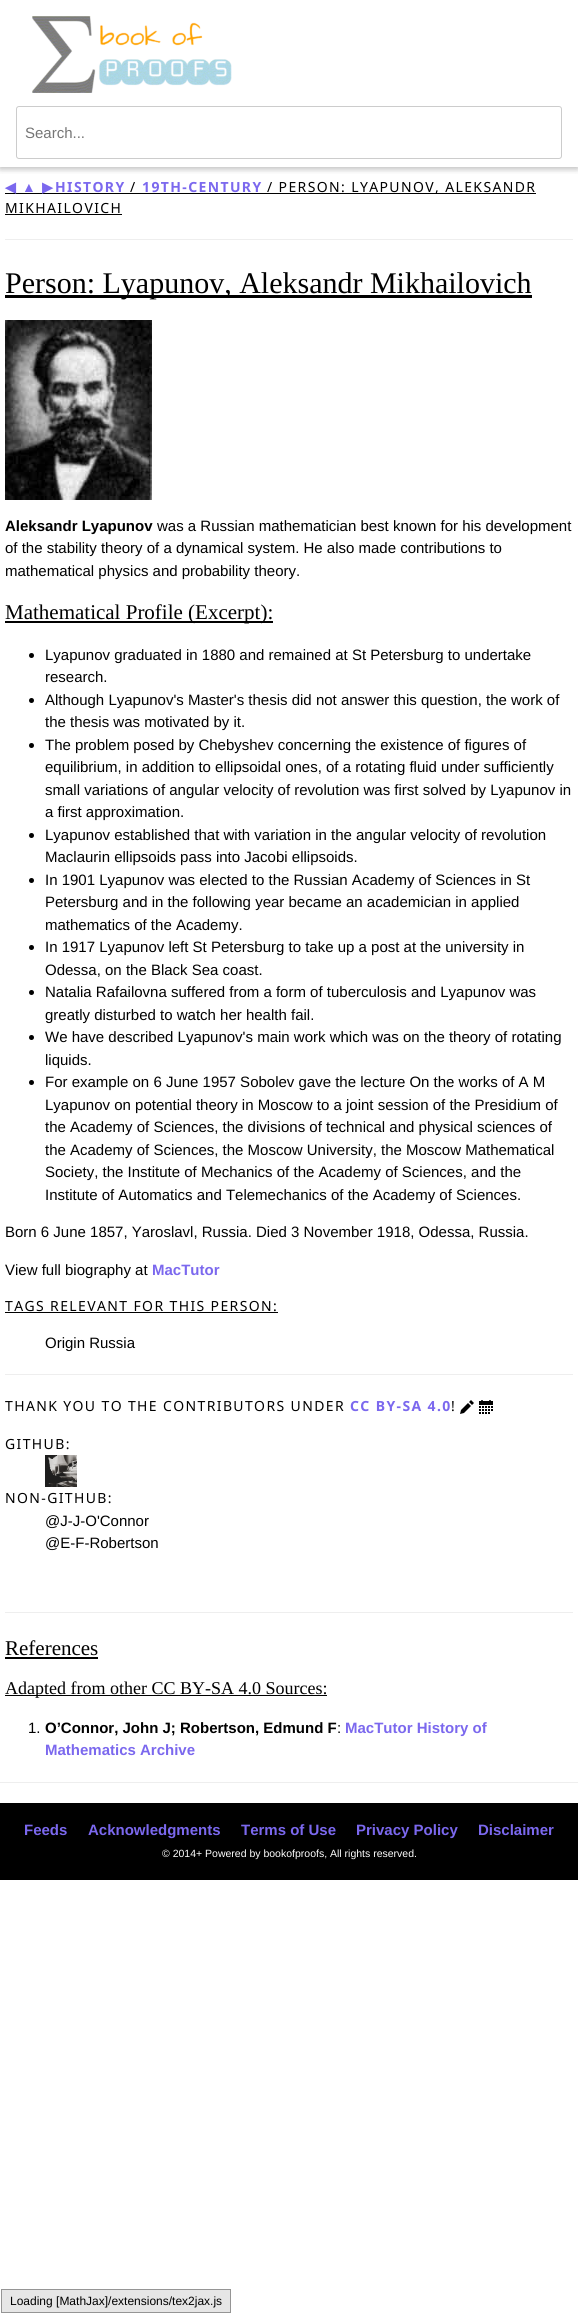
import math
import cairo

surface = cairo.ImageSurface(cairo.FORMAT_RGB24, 578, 2315)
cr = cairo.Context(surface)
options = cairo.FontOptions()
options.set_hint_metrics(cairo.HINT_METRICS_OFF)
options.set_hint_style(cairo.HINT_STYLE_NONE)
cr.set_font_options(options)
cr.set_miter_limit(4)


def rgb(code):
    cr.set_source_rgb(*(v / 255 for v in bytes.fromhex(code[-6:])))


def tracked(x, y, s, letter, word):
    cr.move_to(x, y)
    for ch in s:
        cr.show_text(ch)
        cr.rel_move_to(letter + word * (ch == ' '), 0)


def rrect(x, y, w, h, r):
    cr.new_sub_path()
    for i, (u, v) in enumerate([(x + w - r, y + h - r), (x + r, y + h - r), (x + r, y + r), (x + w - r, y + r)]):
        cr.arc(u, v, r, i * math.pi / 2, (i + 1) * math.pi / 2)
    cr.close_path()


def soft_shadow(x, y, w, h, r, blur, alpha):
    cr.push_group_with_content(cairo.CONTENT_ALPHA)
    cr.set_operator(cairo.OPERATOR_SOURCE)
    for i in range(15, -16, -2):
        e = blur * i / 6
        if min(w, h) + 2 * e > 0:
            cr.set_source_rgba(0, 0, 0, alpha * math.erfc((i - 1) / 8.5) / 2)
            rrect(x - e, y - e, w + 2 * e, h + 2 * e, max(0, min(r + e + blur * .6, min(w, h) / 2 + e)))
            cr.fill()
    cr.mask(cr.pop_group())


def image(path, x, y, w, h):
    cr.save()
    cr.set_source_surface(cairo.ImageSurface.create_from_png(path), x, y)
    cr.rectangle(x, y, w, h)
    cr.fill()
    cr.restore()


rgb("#ffffff")
cr.paint()
cr.save()
cr.rectangle(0, 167, 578, 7)
cr.clip()
rgb("#000000")
soft_shadow(0, 2, 578, 167, 0, 5, 0.12)
cr.restore()
cr.save()
cr.rectangle(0, 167, 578, 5)
cr.clip()
rgb("#000000")
soft_shadow(0, 2, 578, 167, 0, 2.5, 0.16)
cr.restore()
image("img/1.png", 32, 16, 200, 77)
rrect(16.5, 106.5, 545, 52, 2.5)
rgb("#cccccc")
cr.set_line_width(1)
cr.stroke()
for x, y, w, h, color in [
    (5, 193, 531, 1, "#000000"),
    (5, 214, 117, 1, "#000000"),
    (5, 239, 568, 1, "#eeeeee"),
    (5, 295, 527, 3, "#000000"),
]:
    rgb(color)
    cr.rectangle(x, y, w, h)
    cr.fill()
image("img/2.png", 5, 320, 147, 180)
cr.rectangle(5, 621, 268, 2)
cr.fill()
cr.arc(31.5, 655.5, 2.5, 0, 2 * math.pi)
cr.fill()
cr.arc(31.5, 700.5, 2.5, 0, 2 * math.pi)
cr.fill()
cr.arc(31.5, 745.5, 2.5, 0, 2 * math.pi)
cr.fill()
cr.arc(31.5, 835.5, 2.5, 0, 2 * math.pi)
cr.fill()
cr.arc(31.5, 880.5, 2.5, 0, 2 * math.pi)
cr.fill()
cr.arc(31.5, 947.5, 2.5, 0, 2 * math.pi)
cr.fill()
cr.arc(31.5, 992.5, 2.5, 0, 2 * math.pi)
cr.fill()
cr.arc(31.5, 1037.5, 2.5, 0, 2 * math.pi)
cr.fill()
cr.arc(31.5, 1082.5, 2.5, 0, 2 * math.pi)
cr.fill()
cr.rectangle(5, 1312, 273, 1)
cr.fill()
rgb("#eeeeee")
cr.rectangle(5, 1374, 568, 1)
cr.fill()
image("img/3.png", 460, 1400, 14, 14)
image("img/4.png", 479, 1400, 14, 14)
image("img/5.png", 45, 1455, 32, 32)
for x, y, w, h, color in [
    (5, 1612, 568, 1, "#eeeeee"),
    (5, 1657, 93, 2, "#000000"),
    (5, 1695, 322, 1, "#000000"),
    (0, 1782, 578, 1, "#eeeeee"),
    (0, 1803, 578, 77, "#000000"),
]:
    rgb(color)
    cr.rectangle(x, y, w, h)
    cr.fill()
rgb("#e6e6e6")
cr.rectangle(1.5, 2289.5, 229, 23)
cr.fill_preserve()
rgb("#959595")
cr.stroke()
cr.select_font_face("Liberation Sans")
cr.set_font_size(15)
rgb("#757575")
cr.move_to(25, 138)
cr.show_text("Search...")
cr.select_font_face("DejaVu Sans", cairo.FONT_SLANT_NORMAL, cairo.FONT_WEIGHT_BOLD)
cr.set_font_size(13.95)
rgb("#7b68ee")
tracked(5, 192, "◀", 1.4, 0)
cr.select_font_face("Liberation Sans", cairo.FONT_SLANT_NORMAL, cairo.FONT_WEIGHT_BOLD)
tracked(22, 192, "▲", 1.4, 0)
cr.select_font_face("DejaVu Sans", cairo.FONT_SLANT_NORMAL, cairo.FONT_WEIGHT_BOLD)
tracked(42, 192, "▶", 1.4, 0)
cr.select_font_face("Noto Sans", cairo.FONT_SLANT_NORMAL, cairo.FONT_WEIGHT_BOLD)
tracked(55, 192, "HISTORY", 1.4, 0)
cr.select_font_face("Noto Sans")
rgb("#000000")
tracked(130, 192, "/", 1.4, 0)
cr.select_font_face("Noto Sans", cairo.FONT_SLANT_NORMAL, cairo.FONT_WEIGHT_BOLD)
rgb("#7b68ee")
tracked(142, 192, "19TH-CENTURY", 1.4, 0)
cr.select_font_face("Noto Sans")
rgb("#000000")
tracked(267, 192, "/ PERSON: LYAPUNOV, ALEKSANDR", 1.4, 0)
tracked(5, 213, "MIKHAILOVICH", 1.4, 0)
cr.select_font_face("Liberation Serif")
cr.set_font_size(30)
cr.move_to(5, 293)
cr.show_text("Person: Lyapunov, Aleksandr Mikhailovich")
cr.select_font_face("Liberation Sans", cairo.FONT_SLANT_NORMAL, cairo.FONT_WEIGHT_BOLD)
cr.set_font_size(15)
cr.move_to(5, 531)
cr.show_text("Aleksandr Lyapunov")
cr.select_font_face("Liberation Sans")
for x, y, s in [
    (157, 531, "was a Russian mathematician best known for his development"),
    (5, 553, "of the stability theory of a dynamical system. He also made contributions to"),
    (5, 576, "mathematical physics and probability theory."),
]:
    cr.move_to(x, y)
    cr.show_text(s)
cr.select_font_face("Liberation Serif")
cr.set_font_size(21)
cr.move_to(5, 619)
cr.show_text("Mathematical Profile (Excerpt):")
cr.select_font_face("Liberation Sans")
cr.set_font_size(15)
for x, y, s in [
    (45, 660, "Lyapunov graduated in 1880 and remained at St Petersburg to undertake"),
    (45, 682, "research."),
    (45, 705, "Although Lyapunov's Master's thesis did not answer this question, the work of"),
    (45, 727, "the thesis was motivated by it."),
    (45, 750, "The problem posed by Chebyshev concerning the existence of figures of"),
    (45, 772, "equilibrium, in addition to ellipsoidal ones, of a rotating fluid under sufficiently"),
    (45, 795, "small variations of angular velocity of revolution was first solved by Lyapunov in"),
    (45, 817, "a first approximation."),
    (45, 840, "Lyapunov established that with variation in the angular velocity of revolution"),
    (45, 862, "Maclaurin ellipsoids pass into Jacobi ellipsoids."),
    (45, 885, "In 1901 Lyapunov was elected to the Russian Academy of Sciences in St"),
    (45, 907, "Petersburg and in the following year became an academician in applied"),
    (45, 930, "mathematics of the Academy."),
    (45, 952, "In 1917 Lyapunov left St Petersburg to take up a post at the university in"),
    (45, 975, "Odessa, on the Black Sea coast."),
    (45, 997, "Natalia Rafailovna suffered from a form of tuberculosis and Lyapunov was"),
    (45, 1020, "greatly disturbed to watch her health fail."),
    (45, 1042, "We have described Lyapunov's main work which was on the theory of rotating"),
    (45, 1065, "liquids."),
    (45, 1087, "For example on 6 June 1957 Sobolev gave the lecture On the works of A M"),
    (45, 1110, "Lyapunov on potential theory in Moscow to a joint session of the Presidium of"),
    (45, 1132, "the Academy of Sciences, the divisions of technical and physical sciences of"),
    (45, 1155, "the Academy of Sciences, the Moscow University, the Moscow Mathematical"),
    (45, 1177, "Society, the Institute of Mechanics of the Academy of Sciences, and the"),
    (45, 1200, "Institute of Automatics and Telemechanics of the Academy of Sciences."),
    (5, 1237, "Born 6 June 1857, Yaroslavl, Russia. Died 3 November 1918, Odessa, Russia."),
    (5, 1275, "View full biography at"),
]:
    cr.move_to(x, y)
    cr.show_text(s)
cr.select_font_face("Liberation Sans", cairo.FONT_SLANT_NORMAL, cairo.FONT_WEIGHT_BOLD)
rgb("#7b68ee")
cr.move_to(152, 1275)
cr.show_text("MacTutor")
cr.select_font_face("Noto Sans")
cr.set_font_size(13.95)
rgb("#000000")
tracked(5, 1311, "TAGS RELEVANT FOR THIS PERSON:", 1.4, 0)
cr.select_font_face("Liberation Sans")
cr.set_font_size(15)
cr.move_to(45, 1348)
cr.show_text("Origin Russia")
cr.select_font_face("Noto Sans")
cr.set_font_size(13.95)
tracked(5, 1411, "THANK YOU TO THE CONTRIBUTORS UNDER", 1.4, 0)
cr.select_font_face("Noto Sans", cairo.FONT_SLANT_NORMAL, cairo.FONT_WEIGHT_BOLD)
rgb("#7b68ee")
tracked(350, 1411, "CC BY-SA 4.0", 1.4, 0)
cr.select_font_face("Noto Sans")
rgb("#000000")
for x, y, s in [
    (451, 1411, "!"),
    (5, 1449, "GITHUB:"),
    (5, 1503, "NON-GITHUB:"),
]:
    tracked(x, y, s, 1.4, 0)
cr.select_font_face("Liberation Sans")
cr.set_font_size(15)
cr.move_to(45, 1526)
cr.show_text("@J-J-O'Connor")
cr.move_to(45, 1548)
cr.show_text("@E-F-Robertson")
cr.select_font_face("Liberation Serif")
cr.set_font_size(21)
cr.move_to(5, 1655)
cr.show_text("References")
cr.set_font_size(18)
cr.move_to(5, 1694)
cr.show_text("Adapted from other CC BY-SA 4.0 Sources:")
cr.select_font_face("Liberation Sans")
cr.set_font_size(15)
cr.move_to(28, 1733)
cr.show_text("1.")
cr.select_font_face("Liberation Sans", cairo.FONT_SLANT_NORMAL, cairo.FONT_WEIGHT_BOLD)
cr.move_to(45, 1733)
cr.show_text("O’Connor, John J; Robertson, Edmund F")
cr.select_font_face("Liberation Sans")
cr.move_to(337, 1733)
cr.show_text(":")
cr.select_font_face("Liberation Sans", cairo.FONT_SLANT_NORMAL, cairo.FONT_WEIGHT_BOLD)
rgb("#7b68ee")
for x, y, s in [
    (345, 1733, "MacTutor History of"),
    (45, 1755, "Mathematics Archive"),
    (24, 1835, "Feeds"),
    (88, 1835, "Acknowledgments"),
    (241, 1835, "Terms of Use"),
    (356, 1835, "Privacy Policy"),
    (478, 1835, "Disclaimer"),
]:
    cr.move_to(x, y)
    cr.show_text(s)
cr.select_font_face("Liberation Sans")
cr.set_font_size(10.5)
rgb("#ffffff")
cr.move_to(162, 1857)
cr.show_text("© 2014+ Powered by bookofproofs, All rights reserved.")
cr.set_font_size(12)
rgb("#000000")
cr.move_to(10, 2305)
cr.show_text("Loading [MathJax]/extensions/tex2jax.js")
surface.write_to_png("page.png")
